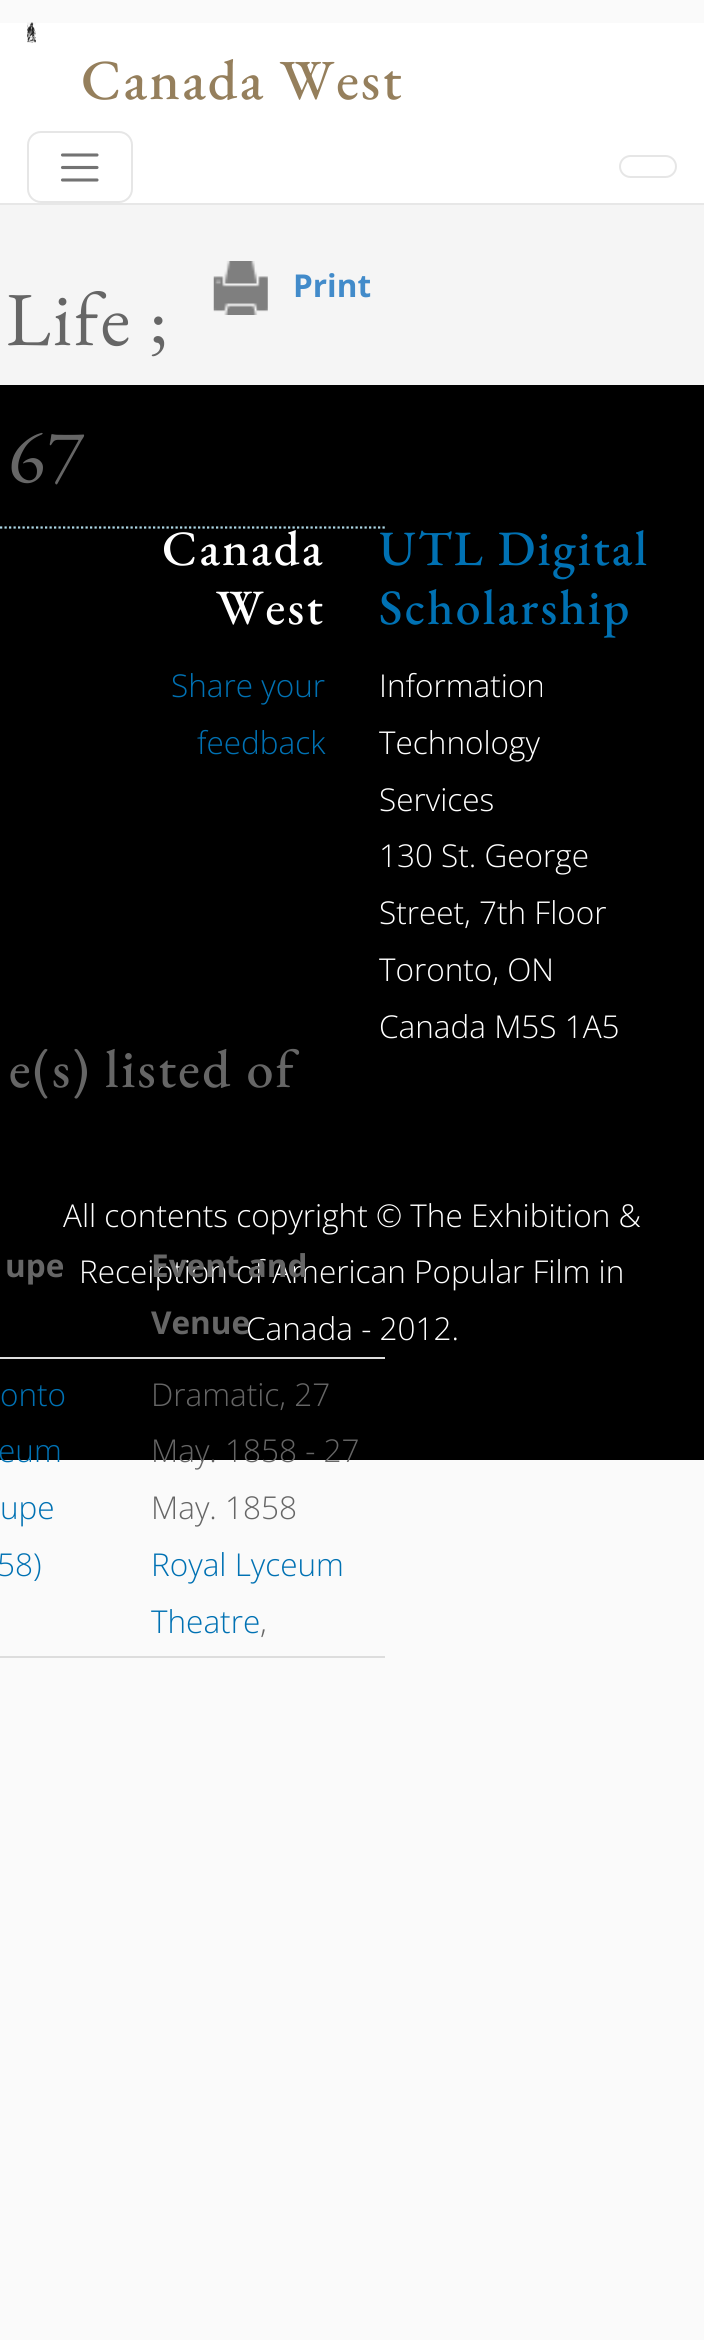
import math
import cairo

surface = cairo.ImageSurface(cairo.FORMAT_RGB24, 704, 2340)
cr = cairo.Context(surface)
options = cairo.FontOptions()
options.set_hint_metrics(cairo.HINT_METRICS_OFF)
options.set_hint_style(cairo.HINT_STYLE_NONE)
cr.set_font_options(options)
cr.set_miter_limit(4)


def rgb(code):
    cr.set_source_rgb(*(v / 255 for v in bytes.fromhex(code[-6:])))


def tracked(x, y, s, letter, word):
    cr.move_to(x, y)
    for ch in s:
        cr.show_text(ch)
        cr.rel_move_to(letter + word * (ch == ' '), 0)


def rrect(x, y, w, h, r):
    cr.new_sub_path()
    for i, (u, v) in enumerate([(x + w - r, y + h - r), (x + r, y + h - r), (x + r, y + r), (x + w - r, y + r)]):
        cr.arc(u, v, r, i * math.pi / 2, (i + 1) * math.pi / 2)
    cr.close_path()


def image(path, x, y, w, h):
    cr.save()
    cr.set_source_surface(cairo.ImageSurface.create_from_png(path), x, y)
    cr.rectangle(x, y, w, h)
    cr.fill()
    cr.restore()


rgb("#fafafa")
cr.paint()
rgb("#ffffff")
cr.rectangle(0, 23, 704, 180)
cr.fill()
rgb("#e7e7e7")
cr.rectangle(0, 203, 704, 2)
cr.fill()
image("img/1.png", 27, 22, 9, 21)
rrect(28, 132, 104, 70, 13)
rgb("#e6e6e6")
cr.stroke()
cr.new_path()
cr.move_to(62.5, 155)
cr.line_to(97, 155)
cr.move_to(62.5, 167.5)
cr.line_to(97, 167.5)
cr.move_to(62.5, 180)
cr.line_to(97, 180)
rgb("#737373")
cr.set_line_width(3.1)
cr.set_line_cap(cairo.LINE_CAP_ROUND)
cr.stroke()
rrect(620, 156, 56, 21, 10.5)
rgb("#e6e6e6")
cr.set_line_width(2)
cr.set_line_cap(cairo.LINE_CAP_BUTT)
cr.stroke()
rgb("#f5f5f5")
cr.rectangle(0, 205, 704, 180)
cr.fill()
image("img/2.png", 213, 261, 55, 54)
rgb("#000000")
cr.rectangle(0, 385, 704, 1075)
cr.fill()
cr.new_path()
cr.move_to(-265.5, 527.5)
cr.line_to(385, 527.5)
rgb("#add8e6")
cr.set_line_width(2.2)
cr.set_dash([2.25, 2.25])
cr.stroke()
cr.set_source_rgba(0, 0, 0, 0.06)
cr.rectangle(82, 1231, 303, 110)
cr.fill()
rgb("#dddddd")
cr.rectangle(0, 1357, 385, 2)
cr.rectangle(0, 1656, 385, 2)
cr.fill()
cr.select_font_face("EB Garamond Medium")
cr.set_font_size(56.75)
rgb("#957f5c")
tracked(81, 99, "Canada West", 2.25, 0)
cr.select_font_face("Open Sans", cairo.FONT_SLANT_NORMAL, cairo.FONT_WEIGHT_BOLD)
cr.set_font_size(31.5)
rgb("#428bca")
cr.move_to(293, 297)
cr.show_text("Print")
cr.select_font_face("EB Garamond")
cr.set_font_size(76.5)
rgb("#666666")
tracked(6, 345, "Life ;", 2.25, 0)
tracked(8, 482, "67", 2.25, 0)
cr.select_font_face("EB Garamond Medium")
cr.set_font_size(54)
tracked(9, 1087, "e(s) listed of", 2.25, 0)
cr.select_font_face("Open Sans", cairo.FONT_SLANT_NORMAL, cairo.FONT_WEIGHT_BOLD)
cr.set_font_size(31.5)
cr.move_to(5, 1277)
cr.show_text("upe")
cr.select_font_face("Open Sans Light")
rgb("#0071b3")
for x, y, s in [
    (0, 1406, "onto"),
    (-2, 1462, "eum"),
    (0, 1519, "upe"),
    (-3, 1576, "58)"),
]:
    cr.move_to(x, y)
    cr.show_text(s)
rgb("#666666")
for x, y, s in [
    (151, 1406, "Dramatic, 27"),
    (151, 1462, "May. 1858 - 27"),
    (151, 1519, "May. 1858"),
]:
    cr.move_to(x, y)
    cr.show_text(s)
rgb("#0071b3")
cr.move_to(151, 1576)
cr.show_text("Royal Lyceum")
cr.move_to(151, 1633)
cr.show_text("Theatre")
rgb("#666666")
cr.move_to(260, 1633)
cr.show_text(",")
cr.select_font_face("EB Garamond Medium")
cr.set_font_size(49.5)
rgb("#ffffff")
tracked(162, 565, "Canada", 2.25, 0)
tracked(216, 624, "West", 2.25, 0)
cr.select_font_face("Open Sans Light")
cr.set_font_size(31.5)
rgb("#0071b3")
cr.move_to(171, 697)
cr.show_text("Share your")
cr.move_to(197, 754)
cr.show_text("feedback")
cr.select_font_face("EB Garamond Medium")
cr.set_font_size(49.5)
tracked(379, 565, "UTL Digital", 2.25, 0)
tracked(379, 624, "Scholarship", 2.25, 0)
cr.select_font_face("Open Sans Light")
cr.set_font_size(31.5)
rgb("#ffffff")
for x, y, s in [
    (379, 697, "Information"),
    (379, 754, "Technology"),
    (379, 811, "Services"),
    (379, 867, "130 St. George"),
    (379, 924, "Street, 7th Floor"),
    (379, 981, "Toronto, ON"),
    (379, 1038, "Canada M5S 1A5"),
    (63, 1227, "All contents copyright © The Exhibition &"),
    (79, 1283, "Receiption of American Popular Film in"),
]:
    cr.move_to(x, y)
    cr.show_text(s)
cr.select_font_face("Open Sans", cairo.FONT_SLANT_NORMAL, cairo.FONT_WEIGHT_BOLD)
rgb("#666666")
cr.move_to(151, 1277)
cr.show_text("Event and")
cr.select_font_face("Open Sans Light")
rgb("#ffffff")
cr.move_to(246, 1340)
cr.show_text("Canada - 2012.")
cr.select_font_face("Open Sans", cairo.FONT_SLANT_NORMAL, cairo.FONT_WEIGHT_BOLD)
rgb("#666666")
cr.move_to(151, 1334)
cr.show_text("Venue")
surface.write_to_png("page.png")
